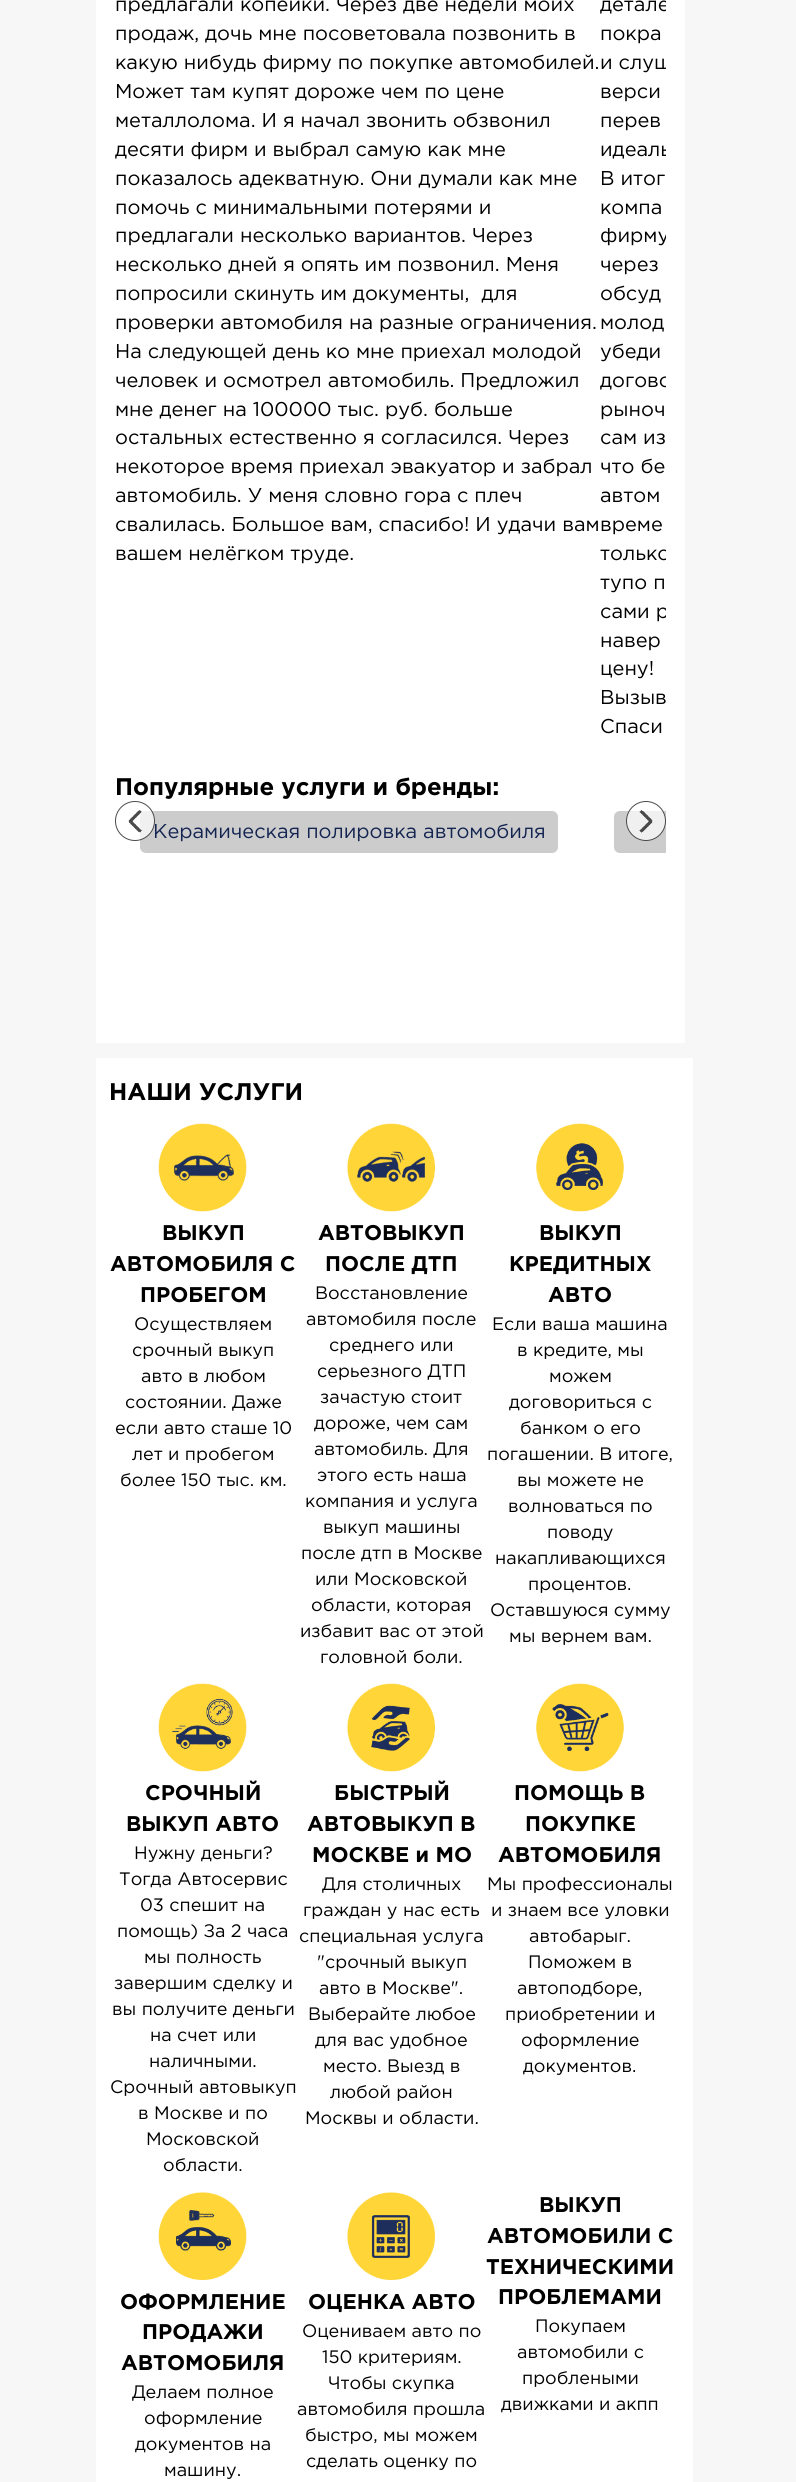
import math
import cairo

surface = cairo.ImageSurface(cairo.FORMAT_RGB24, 796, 2482)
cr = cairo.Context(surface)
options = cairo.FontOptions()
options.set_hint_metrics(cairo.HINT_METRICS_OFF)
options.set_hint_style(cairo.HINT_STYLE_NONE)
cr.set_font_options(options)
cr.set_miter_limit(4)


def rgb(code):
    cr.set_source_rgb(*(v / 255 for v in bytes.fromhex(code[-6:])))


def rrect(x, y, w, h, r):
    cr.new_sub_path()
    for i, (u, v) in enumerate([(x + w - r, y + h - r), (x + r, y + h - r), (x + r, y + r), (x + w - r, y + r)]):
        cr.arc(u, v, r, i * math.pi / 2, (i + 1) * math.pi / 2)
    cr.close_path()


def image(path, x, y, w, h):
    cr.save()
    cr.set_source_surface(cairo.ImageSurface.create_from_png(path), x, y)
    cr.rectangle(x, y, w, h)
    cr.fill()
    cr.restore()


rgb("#f7f7f7")
cr.paint()
rgb("#ffffff")
cr.rectangle(96, 0, 589, 1043)
cr.fill()
rgb("#cccccc")
rrect(140, 811, 418, 42, 6)
cr.fill()
cr.new_path()
cr.move_to(620, 811)
cr.line_to(666, 811)
cr.line_to(666, 853)
cr.line_to(620, 853)
cr.curve_to(616.5, 853, 614, 850.5, 614, 847)
cr.line_to(614, 817)
cr.curve_to(614, 813.5, 616.5, 811, 620, 811)
cr.close_path()
cr.fill()
cr.set_source_rgba(1, 1, 1, 0.7)
cr.arc(646, 821, 20, 0, 2 * math.pi)
cr.fill()
image("img/2.png", 639, 810, 14, 23)
cr.arc(646, 821, 19.5, 0, 2 * math.pi)
cr.set_source_rgba(0, 0, 0, 0.7)
cr.set_line_width(1)
cr.stroke()
rgb("#ffffff")
cr.rectangle(96, 1058, 597, 1424)
cr.fill()
image("img/3.png", 158, 1123, 89, 89)
image("img/4.png", 347, 1123, 88, 89)
image("img/5.png", 536, 1123, 88, 89)
image("img/6.png", 158, 1683, 89, 89)
image("img/7.png", 347, 1683, 88, 89)
image("img/8.png", 536, 1683, 88, 89)
image("img/9.png", 158, 2192, 89, 88)
image("img/10.png", 347, 2192, 88, 88)
cr.select_font_face("Gotham")
cr.set_font_size(20)
rgb("#000000")
for x, y, s in [
    (115, 11, "предлагали копейки. Через две недели моих"),
    (115, 40, "продаж, дочь мне посоветовала позвонить в"),
    (115, 69, "какую нибудь фирму по покупке автомобилей."),
    (115, 98, "Может там купят дороже чем по цене"),
    (115, 127, "металлолома. И я начал звонить обзвонил"),
    (115, 156, "десяти фирм и выбрал самую как мне"),
    (115, 185, "показалось адекватную. Они думали как мне"),
    (115, 214, "помочь с минимальными потерями и"),
    (115, 242, "предлагали несколько вариантов. Через"),
    (115, 271, "несколько дней я опять им позвонил. Меня"),
    (115, 300, "попросили скинуть им документы,  для"),
    (115, 329, "проверки автомобиля на разные ограничения."),
    (115, 358, "На следующей день ко мне приехал молодой"),
    (115, 387, "человек и осмотрел автомобиль. Предложил"),
    (115, 416, "мне денег на 100000 тыс. руб. больше"),
    (115, 444, "остальных естественно я согласился. Через"),
    (115, 473, "некоторое время приехал эвакуатор и забрал"),
    (115, 502, "автомобиль. У меня словно гора с плеч"),
    (115, 531, "свалилась. Большое вам, спасибо! И удачи вам"),
    (115, 560, "вашем нелёгком труде."),
]:
    cr.move_to(x, y)
    cr.show_text(s)
cr.save()
cr.rectangle(115, 0, 551, 759)
cr.clip()
cr.move_to(600, 11)
cr.show_text("детале")
cr.restore()
cr.move_to(600, 40)
cr.show_text("покра")
cr.save()
cr.rectangle(115, 0, 551, 759)
cr.clip()
cr.move_to(600, 69)
cr.show_text("и слуш")
cr.restore()
cr.move_to(600, 98)
cr.show_text("верси")
cr.move_to(600, 127)
cr.show_text("перев")
cr.save()
cr.rectangle(115, 0, 551, 759)
cr.clip()
cr.move_to(600, 156)
cr.show_text("идеаль")
cr.restore()
cr.move_to(600, 185)
cr.show_text("В итог")
cr.move_to(600, 214)
cr.show_text("компа")
cr.save()
cr.rectangle(115, 0, 551, 759)
cr.clip()
cr.move_to(600, 242)
cr.show_text("фирму")
cr.restore()
for x, y, s in [
    (600, 271, "через"),
    (600, 300, "обсуд"),
    (600, 329, "молод"),
    (600, 358, "убеди"),
]:
    cr.move_to(x, y)
    cr.show_text(s)
cr.save()
cr.rectangle(115, 0, 551, 759)
cr.clip()
cr.move_to(600, 387)
cr.show_text("догово")
cr.restore()
for x, y, s in [
    (600, 416, "рыноч"),
    (600, 444, "сам из"),
    (600, 473, "что бе"),
    (600, 502, "автом"),
    (600, 531, "време"),
]:
    cr.move_to(x, y)
    cr.show_text(s)
cr.save()
cr.rectangle(115, 0, 551, 759)
cr.clip()
cr.move_to(600, 560)
cr.show_text("только")
cr.restore()
cr.move_to(600, 589)
cr.show_text("тупо п")
cr.save()
cr.rectangle(115, 0, 551, 759)
cr.clip()
cr.move_to(600, 618)
cr.show_text("сами р")
cr.restore()
for x, y, s in [
    (600, 647, "навер"),
    (600, 675, "цену!"),
    (600, 704, "Вызыв"),
    (600, 733, "Спаси"),
]:
    cr.move_to(x, y)
    cr.show_text(s)
cr.select_font_face("Gotham", cairo.FONT_SLANT_NORMAL, cairo.FONT_WEIGHT_BOLD)
cr.set_font_size(24)
cr.move_to(115, 795)
cr.show_text("Популярные услуги и бренды:")
cr.select_font_face("Gotham")
cr.set_font_size(20)
rgb("#132451")
cr.move_to(153, 838)
cr.show_text("Керамическая полировка автомобиля")
cr.set_source_rgba(1, 1, 1, 0.7)
cr.new_path()
cr.arc(135, 821, 20, 0, 2 * math.pi)
cr.fill()
image("img/1.png", 128, 810, 14, 23)
cr.arc(135, 821, 19.5, 0, 2 * math.pi)
cr.set_source_rgba(0, 0, 0, 0.7)
cr.stroke()
cr.select_font_face("Gotham", cairo.FONT_SLANT_NORMAL, cairo.FONT_WEIGHT_BOLD)
cr.set_font_size(24)
rgb("#000000")
cr.move_to(109, 1100)
cr.show_text("НАШИ УСЛУГИ")
cr.set_font_size(21.25)
for x, y, s in [
    (162, 1240, "ВЫКУП"),
    (110, 1271, "АВТОМОБИЛЯ С"),
    (140, 1302, "ПРОБЕГОМ"),
]:
    cr.move_to(x, y)
    cr.show_text(s)
cr.select_font_face("Gotham")
cr.set_font_size(18)
for x, y, s in [
    (134, 1330, "Осуществляем"),
    (132, 1356, "срочный выкуп"),
    (141, 1382, "авто в любом"),
    (125, 1408, "состоянии. Даже"),
    (115, 1434, "если авто сташе 10"),
    (132, 1460, "лет и пробегом"),
    (120, 1486, "более 150 тыс. км."),
]:
    cr.move_to(x, y)
    cr.show_text(s)
cr.select_font_face("Gotham", cairo.FONT_SLANT_NORMAL, cairo.FONT_WEIGHT_BOLD)
cr.set_font_size(21.25)
cr.move_to(318, 1240)
cr.show_text("АВТОВЫКУП")
cr.move_to(325, 1271)
cr.show_text("ПОСЛЕ ДТП")
cr.select_font_face("Gotham")
cr.set_font_size(18)
for x, y, s in [
    (315, 1299, "Восстановление"),
    (306, 1325, "автомобиля после"),
    (329, 1351, "среднего или"),
    (317, 1377, "серьезного ДТП"),
    (320, 1403, "зачастую стоит"),
    (314, 1429, "дороже, чем сам"),
    (314, 1455, "автомобиль. Для"),
    (317, 1481, "этого есть наша"),
    (305, 1507, "компания и услуга"),
    (323, 1533, "выкуп машины"),
    (301, 1559, "после дтп в Москве"),
    (315, 1585, "или Московской"),
    (311, 1611, "области, которая"),
    (300, 1637, "избавит вас от этой"),
    (320, 1663, "головной боли."),
]:
    cr.move_to(x, y)
    cr.show_text(s)
cr.select_font_face("Gotham", cairo.FONT_SLANT_NORMAL, cairo.FONT_WEIGHT_BOLD)
cr.set_font_size(21.25)
for x, y, s in [
    (539, 1240, "ВЫКУП"),
    (509, 1271, "КРЕДИТНЫХ"),
    (548, 1302, "АВТО"),
]:
    cr.move_to(x, y)
    cr.show_text(s)
cr.select_font_face("Gotham")
cr.set_font_size(18)
for x, y, s in [
    (492, 1330, "Если ваша машина"),
    (517, 1356, "в кредите, мы"),
    (549, 1382, "можем"),
    (509, 1408, "договориться с"),
    (520, 1434, "банком о его"),
    (487, 1460, "погашении. В итоге,"),
    (517, 1486, "вы можете не"),
    (508, 1512, "волноваться по"),
    (547, 1538, "поводу"),
    (495, 1564, "накапливающихся"),
    (528, 1590, "процентов."),
    (490, 1616, "Оставшуюся сумму"),
    (509, 1642, "мы вернем вам."),
]:
    cr.move_to(x, y)
    cr.show_text(s)
cr.select_font_face("Gotham", cairo.FONT_SLANT_NORMAL, cairo.FONT_WEIGHT_BOLD)
cr.set_font_size(21.25)
cr.move_to(145, 1800)
cr.show_text("СРОЧНЫЙ")
cr.move_to(126, 1831)
cr.show_text("ВЫКУП АВТО")
cr.select_font_face("Gotham")
cr.set_font_size(18)
for x, y, s in [
    (134, 1859, "Нужну деньги?"),
    (119, 1885, "Тогда Автосервис"),
    (140, 1911, "03 спешит на"),
    (117, 1937, "помощь) За 2 часа"),
    (144, 1963, "мы полность"),
    (114, 1989, "завершим сделку и"),
    (112, 2015, "вы получите деньги"),
    (150, 2041, "на счет или"),
    (149, 2067, "наличными."),
    (110, 2093, "Срочный автовыкуп"),
    (138, 2119, "в Москве и по"),
    (146, 2145, "Московской"),
    (163, 2171, "области."),
]:
    cr.move_to(x, y)
    cr.show_text(s)
cr.select_font_face("Gotham", cairo.FONT_SLANT_NORMAL, cairo.FONT_WEIGHT_BOLD)
cr.set_font_size(21.25)
for x, y, s in [
    (334, 1800, "БЫСТРЫЙ"),
    (307, 1831, "АВТОВЫКУП В"),
    (312, 1862, "МОСКВЕ и МО"),
]:
    cr.move_to(x, y)
    cr.show_text(s)
cr.select_font_face("Gotham")
cr.set_font_size(18)
for x, y, s in [
    (322, 1890, "Для столичных"),
    (303, 1916, "граждан у нас есть"),
    (299, 1942, "специальная услуга"),
    (317, 1968, "\"срочный выкуп"),
    (319, 1994, "авто в Москве\"."),
    (308, 2020, "Выберайте любое"),
    (315, 2046, "для вас удобное"),
    (323, 2072, "место. Выезд в"),
    (330, 2098, "любой район"),
    (305, 2124, "Москвы и области."),
]:
    cr.move_to(x, y)
    cr.show_text(s)
cr.select_font_face("Gotham", cairo.FONT_SLANT_NORMAL, cairo.FONT_WEIGHT_BOLD)
cr.set_font_size(21.25)
for x, y, s in [
    (514, 1800, "ПОМОЩЬ В"),
    (525, 1831, "ПОКУПКЕ"),
    (498, 1862, "АВТОМОБИЛЯ"),
]:
    cr.move_to(x, y)
    cr.show_text(s)
cr.select_font_face("Gotham")
cr.set_font_size(18)
for x, y, s in [
    (487, 1890, "Мы профессионалы"),
    (491, 1916, "и знаем все уловки"),
    (529, 1942, "автобарыг."),
    (528, 1968, "Поможем в"),
    (517, 1994, "автоподборе,"),
    (505, 2020, "приобретении и"),
    (521, 2046, "оформление"),
    (523, 2072, "документов."),
]:
    cr.move_to(x, y)
    cr.show_text(s)
cr.select_font_face("Gotham", cairo.FONT_SLANT_NORMAL, cairo.FONT_WEIGHT_BOLD)
cr.set_font_size(21.25)
for x, y, s in [
    (120, 2309, "ОФОРМЛЕНИЕ"),
    (142, 2339, "ПРОДАЖИ"),
    (121, 2370, "АВТОМОБИЛЯ"),
]:
    cr.move_to(x, y)
    cr.show_text(s)
cr.select_font_face("Gotham")
cr.set_font_size(18)
for x, y, s in [
    (132, 2398, "Делаем полное"),
    (144, 2424, "оформление"),
    (135, 2450, "документов на"),
    (164, 2476, "машину."),
]:
    cr.move_to(x, y)
    cr.show_text(s)
cr.select_font_face("Gotham", cairo.FONT_SLANT_NORMAL, cairo.FONT_WEIGHT_BOLD)
cr.set_font_size(21.25)
cr.move_to(308, 2309)
cr.show_text("ОЦЕНКА АВТО")
cr.select_font_face("Gotham")
cr.set_font_size(18)
for x, y, s in [
    (302, 2337, "Оцениваем авто по"),
    (322, 2363, "150 критериям."),
    (328, 2389, "Чтобы скупка"),
    (297, 2415, "автомобиля прошла"),
    (305, 2441, "быстро, мы можем"),
    (306, 2467, "сделать оценку по"),
]:
    cr.move_to(x, y)
    cr.show_text(s)
cr.select_font_face("Gotham", cairo.FONT_SLANT_NORMAL, cairo.FONT_WEIGHT_BOLD)
cr.set_font_size(21.25)
for x, y, s in [
    (539, 2212, "ВЫКУП"),
    (487, 2243, "АВТОМОБИЛИ С"),
    (486, 2274, "ТЕХНИЧЕСКИМИ"),
    (498, 2304, "ПРОБЛЕМАМИ"),
]:
    cr.move_to(x, y)
    cr.show_text(s)
cr.select_font_face("Gotham")
cr.set_font_size(18)
for x, y, s in [
    (535, 2332, "Покупаем"),
    (517, 2358, "автомобили с"),
    (522, 2384, "проблеными"),
    (501, 2410, "движками и акпп"),
]:
    cr.move_to(x, y)
    cr.show_text(s)
surface.write_to_png("page.png")
